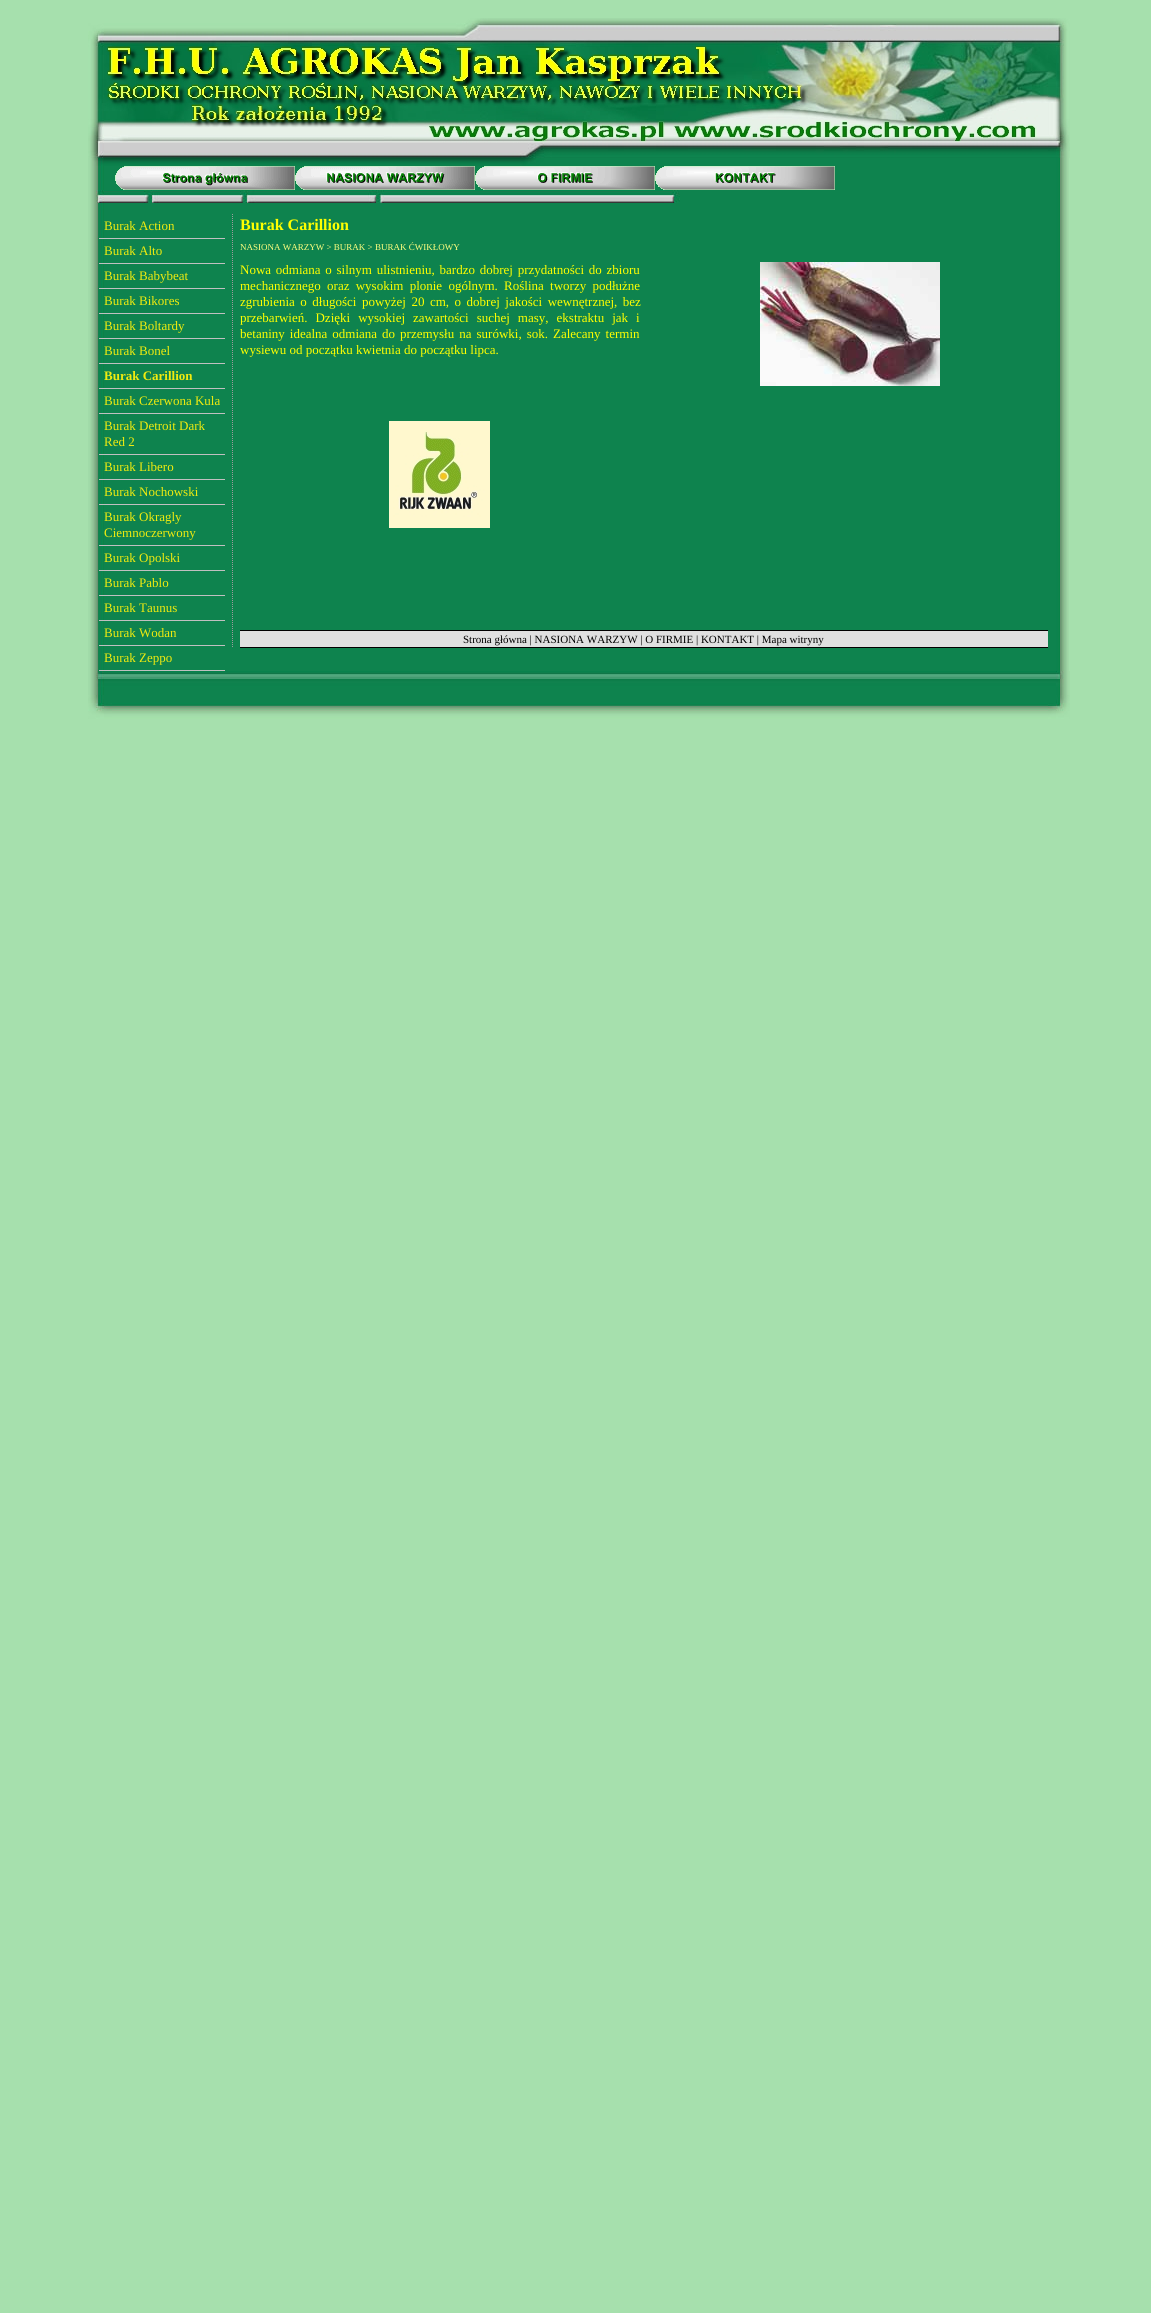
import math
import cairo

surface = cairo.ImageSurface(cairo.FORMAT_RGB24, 1151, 2313)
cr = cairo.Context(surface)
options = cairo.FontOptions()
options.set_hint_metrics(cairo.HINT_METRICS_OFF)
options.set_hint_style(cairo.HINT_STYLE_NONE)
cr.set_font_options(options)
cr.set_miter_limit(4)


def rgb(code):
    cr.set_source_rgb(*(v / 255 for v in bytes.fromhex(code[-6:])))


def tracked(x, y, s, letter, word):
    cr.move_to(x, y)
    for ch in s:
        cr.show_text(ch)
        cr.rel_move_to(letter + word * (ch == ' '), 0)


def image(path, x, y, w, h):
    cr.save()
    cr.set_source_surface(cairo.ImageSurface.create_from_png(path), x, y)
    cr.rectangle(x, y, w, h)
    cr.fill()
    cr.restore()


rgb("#a6e0ad")
cr.paint()
image("img/1.png", 88, 18, 982, 140)
image("img/2.png", 88, 158, 981, 513)
image("img/3.png", 92, 158, 588, 45)
image("img/4.png", 115, 166, 180, 24)
image("img/5.png", 295, 166, 180, 24)
image("img/6.png", 475, 166, 180, 24)
image("img/7.png", 655, 166, 180, 24)
for x, y, w, h, color in [
    (99, 238, 126, 1, "#c0c0c0"),
    (99, 263, 126, 1, "#c0c0c0"),
    (99, 288, 126, 1, "#c0c0c0"),
    (99, 313, 126, 1, "#c0c0c0"),
    (99, 338, 126, 1, "#c0c0c0"),
    (99, 363, 126, 1, "#c0c0c0"),
    (99, 388, 126, 1, "#c0c0c0"),
    (99, 413, 126, 1, "#c0c0c0"),
    (99, 454, 126, 1, "#c0c0c0"),
    (99, 479, 126, 1, "#c0c0c0"),
    (99, 504, 126, 1, "#c0c0c0"),
    (99, 545, 126, 1, "#c0c0c0"),
    (99, 570, 126, 1, "#c0c0c0"),
    (99, 595, 126, 1, "#c0c0c0"),
    (99, 620, 126, 1, "#c0c0c0"),
    (99, 645, 126, 1, "#c0c0c0"),
    (99, 670, 126, 1, "#c0c0c0"),
]:
    rgb(color)
    cr.rectangle(x, y, w, h)
    cr.fill()
image("img/8.png", 232, 214, 1, 433)
image("img/9.png", 760, 262, 180, 124)
image("img/10.png", 389, 421, 101, 107)
for x, y, w, h, color in [
    (240, 631, 808, 16, "#e0e0e0"),
    (240, 630, 808, 1, "#000000"),
    (240, 647, 808, 1, "#000000"),
]:
    rgb(color)
    cr.rectangle(x, y, w, h)
    cr.fill()
image("img/11.png", 88, 671, 982, 48)
cr.select_font_face("Liberation Serif")
cr.set_font_size(13)
rgb("#f0eb0f")
for x, y, s in [
    (104, 230, "Burak Action"),
    (104, 255, "Burak Alto"),
    (104, 280, "Burak Babybeat"),
    (104, 305, "Burak Bikores"),
    (104, 330, "Burak Boltardy"),
    (104, 355, "Burak Bonel"),
]:
    cr.move_to(x, y)
    cr.show_text(s)
cr.select_font_face("Liberation Serif", cairo.FONT_SLANT_NORMAL, cairo.FONT_WEIGHT_BOLD)
cr.move_to(104, 380)
cr.show_text("Burak Carillion")
cr.select_font_face("Liberation Serif")
for x, y, s in [
    (104, 405, "Burak Czerwona Kula"),
    (104, 430, "Burak Detroit Dark"),
    (104, 446, "Red 2"),
    (104, 471, "Burak Libero"),
    (104, 496, "Burak Nochowski"),
    (104, 521, "Burak Okragly"),
    (104, 537, "Ciemnoczerwony"),
    (104, 562, "Burak Opolski"),
    (104, 587, "Burak Pablo"),
    (104, 612, "Burak Taunus"),
    (104, 637, "Burak Wodan"),
    (104, 662, "Burak Zeppo"),
]:
    cr.move_to(x, y)
    cr.show_text(s)
cr.select_font_face("Liberation Serif", cairo.FONT_SLANT_NORMAL, cairo.FONT_WEIGHT_BOLD)
cr.set_font_size(16)
rgb("#ffff00")
cr.move_to(240, 230)
cr.show_text("Burak Carillion")
cr.select_font_face("Liberation Serif")
cr.set_font_size(9)
rgb("#ffff80")
cr.move_to(240, 250)
cr.show_text("NASIONA WARZYW > BURAK > BURAK ĆWIKŁOWY")
cr.set_font_size(13)
rgb("#ffff00")
tracked(240, 274, "Nowa odmiana o silnym ulistnieniu, bardzo dobrej przydatności do zbioru", 0, 1.5)
tracked(240, 290, "mechanicznego oraz wysokim plonie ogólnym. Roślina tworzy podłużne", 0, 3)
tracked(240, 306, "zgrubienia o długości powyżej 20 cm, o dobrej jakości wewnętrznej, bez", 0, 2.25)
tracked(240, 322, "przebarwień. Dzięki wysokiej zawartości suchej masy, ekstraktu jak i", 0, 4.75)
tracked(240, 338, "betaniny idealna odmiana do przemysłu na surówki, sok. Zalecany termin", 0, 1.75)
cr.move_to(240, 354)
cr.show_text("wysiewu od początku kwietnia do początku lipca.")
cr.set_font_size(11)
rgb("#000000")
cr.move_to(463, 643)
cr.show_text("Strona główna | NASIONA WARZYW | O FIRMIE | KONTAKT | Mapa witryny")
surface.write_to_png("page.png")
